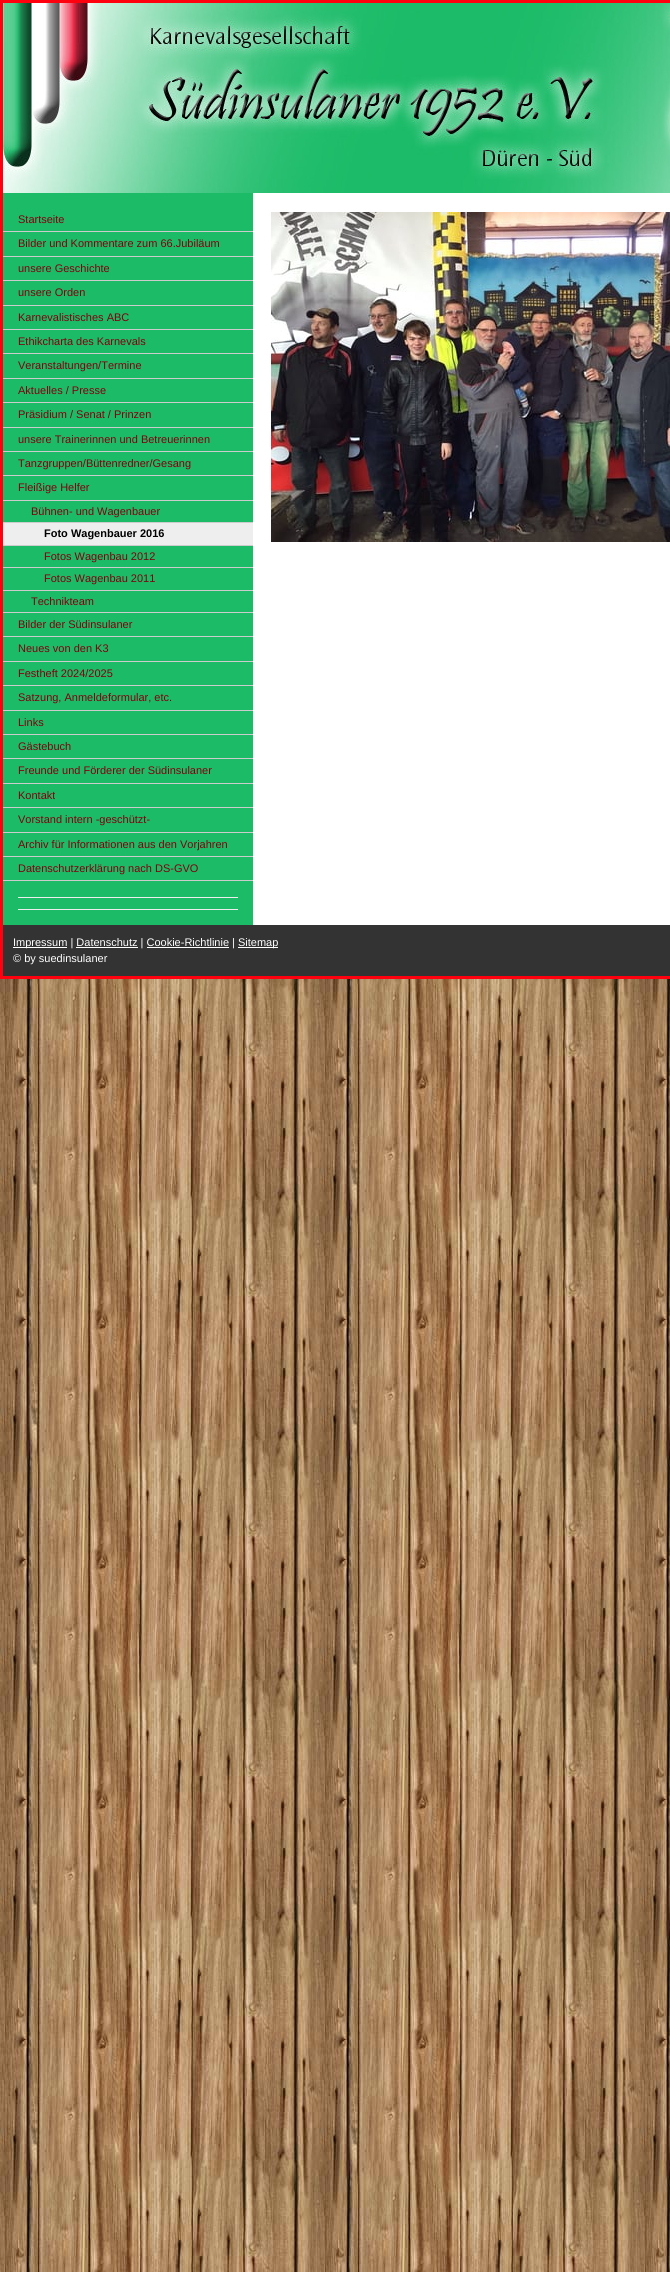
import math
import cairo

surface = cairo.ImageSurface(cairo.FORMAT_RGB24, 670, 2272)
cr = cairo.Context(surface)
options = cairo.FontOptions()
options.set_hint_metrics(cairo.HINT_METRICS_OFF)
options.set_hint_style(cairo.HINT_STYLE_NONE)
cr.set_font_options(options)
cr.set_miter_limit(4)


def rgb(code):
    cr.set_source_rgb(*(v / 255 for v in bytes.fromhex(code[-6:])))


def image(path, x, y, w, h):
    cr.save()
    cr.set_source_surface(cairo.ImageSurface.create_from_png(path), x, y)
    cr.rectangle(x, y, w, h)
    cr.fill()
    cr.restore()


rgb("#ffffff")
cr.paint()
image("img/1.png", 0, 979, 670, 1293)
cr.rectangle(1.5, 1.5, 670, 976)
rgb("#ff000f")
cr.set_line_width(3)
cr.stroke()
image("img/2.png", 3, 3, 667, 190)
for x, y, w, h, color in [
    (3, 193, 250, 687, "#1bbb68"),
    (3, 231, 250, 1, "#cccccc"),
    (3, 256, 250, 1, "#cccccc"),
    (3, 280, 250, 1, "#cccccc"),
    (3, 305, 250, 1, "#cccccc"),
    (3, 329, 250, 1, "#cccccc"),
    (3, 353, 250, 1, "#cccccc"),
    (3, 378, 250, 1, "#cccccc"),
    (3, 402, 250, 1, "#cccccc"),
    (3, 427, 250, 1, "#cccccc"),
    (3, 451, 250, 1, "#cccccc"),
    (3, 475, 250, 1, "#cccccc"),
    (3, 500, 250, 1, "#cccccc"),
    (3, 522, 250, 1, "#cccccc"),
    (3, 523, 250, 22, "#eeeeee"),
    (3, 545, 250, 1, "#cccccc"),
    (3, 567, 250, 1, "#cccccc"),
    (3, 590, 250, 1, "#cccccc"),
    (3, 612, 250, 1, "#cccccc"),
    (3, 636, 250, 1, "#cccccc"),
    (3, 661, 250, 1, "#cccccc"),
    (3, 685, 250, 1, "#cccccc"),
    (3, 710, 250, 1, "#cccccc"),
    (3, 734, 250, 1, "#cccccc"),
    (3, 758, 250, 1, "#cccccc"),
    (3, 783, 250, 1, "#cccccc"),
    (3, 807, 250, 1, "#cccccc"),
    (3, 832, 250, 1, "#cccccc"),
    (3, 856, 250, 1, "#cccccc"),
    (3, 880, 250, 1, "#cccccc"),
]:
    rgb(color)
    cr.rectangle(x, y, w, h)
    cr.fill()
image("img/3.png", 271, 212, 399, 330)
for x, y, w, h, color in [
    (3, 881, 250, 44, "#1bbb68"),
    (18, 897, 220, 1, "#eeeeee"),
    (18, 909, 220, 1, "#eeeeee"),
    (3, 925, 667, 51, "#333333"),
    (13, 947, 54, 1, "#ffffff"),
    (238, 947, 40, 1, "#ffffff"),
    (76, 947, 62, 1, "#ffffff"),
    (147, 947, 82, 1, "#ffffff"),
]:
    rgb(color)
    cr.rectangle(x, y, w, h)
    cr.fill()
cr.select_font_face("Liberation Sans")
cr.set_font_size(11)
rgb("#85000d")
for x, y, s in [
    (18, 223, "Startseite"),
    (18, 247, "Bilder und Kommentare zum 66.Jubiläum"),
    (18, 272, "unsere Geschichte"),
    (18, 296, "unsere Orden"),
    (18, 321, "Karnevalistisches ABC"),
    (18, 345, "Ethikcharta des Karnevals"),
    (18, 369, "Veranstaltungen/Termine"),
    (18, 394, "Aktuelles / Presse"),
    (18, 418, "Präsidium / Senat / Prinzen"),
    (18, 443, "unsere Trainerinnen und Betreuerinnen"),
    (18, 467, "Tanzgruppen/Büttenredner/Gesang"),
    (18, 491, "Fleißige Helfer"),
    (31, 515, "Bühnen- und Wagenbauer"),
]:
    cr.move_to(x, y)
    cr.show_text(s)
cr.select_font_face("Liberation Sans", cairo.FONT_SLANT_NORMAL, cairo.FONT_WEIGHT_BOLD)
rgb("#000000")
cr.move_to(44, 537)
cr.show_text("Foto Wagenbauer 2016")
cr.select_font_face("Liberation Sans")
rgb("#85000d")
for x, y, s in [
    (44, 560, "Fotos Wagenbau 2012"),
    (44, 582, "Fotos Wagenbau 2011"),
    (31, 605, "Technikteam"),
    (18, 628, "Bilder der Südinsulaner"),
    (18, 652, "Neues von den K3"),
    (18, 677, "Festheft 2024/2025"),
    (18, 701, "Satzung, Anmeldeformular, etc."),
    (18, 726, "Links"),
    (18, 750, "Gästebuch"),
    (18, 774, "Freunde und Förderer der Südinsulaner"),
    (18, 799, "Kontakt"),
    (18, 823, "Vorstand intern -geschützt-"),
    (18, 848, "Archiv für Informationen aus den Vorjahren"),
    (18, 872, "Datenschutzerklärung nach DS-GVO"),
]:
    cr.move_to(x, y)
    cr.show_text(s)
rgb("#ffffff")
for x, y, s in [
    (13, 946, "Impressum | Datenschutz | Cookie-Richtlinie |"),
    (238, 946, "Sitemap"),
    (13, 962, "© by suedinsulaner"),
]:
    cr.move_to(x, y)
    cr.show_text(s)
surface.write_to_png("page.png")
